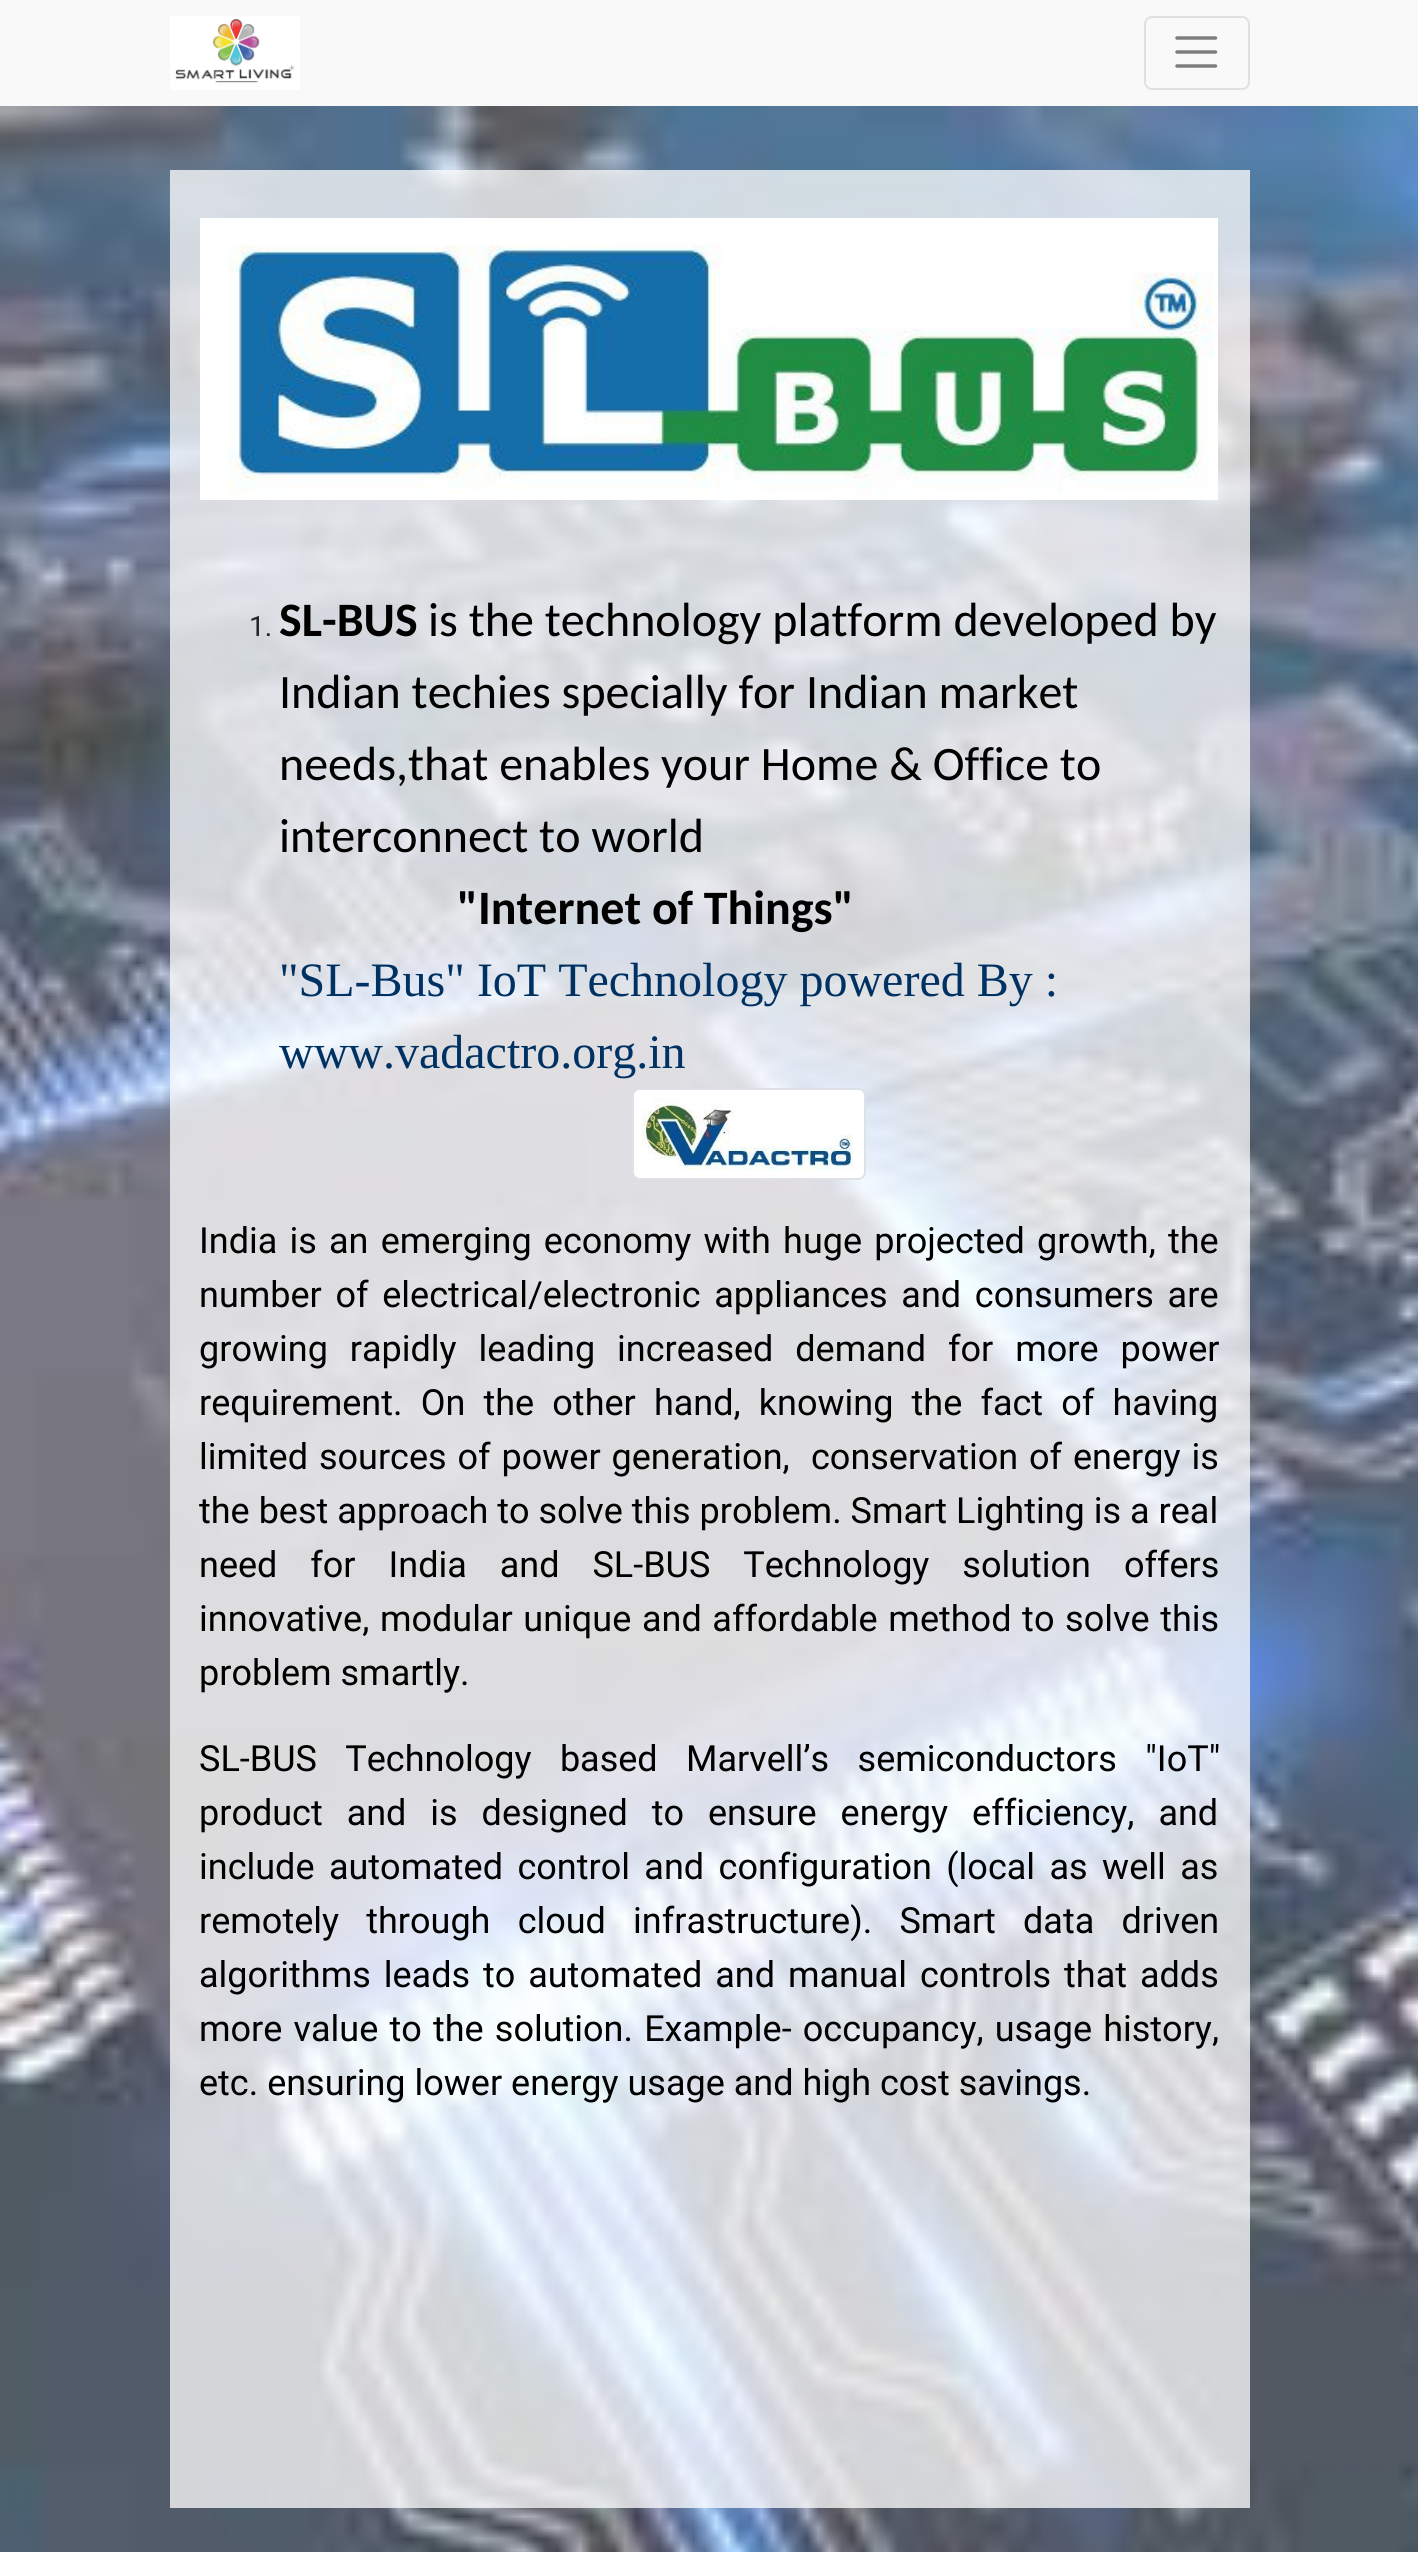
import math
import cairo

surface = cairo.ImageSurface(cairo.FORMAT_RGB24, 1418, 2552)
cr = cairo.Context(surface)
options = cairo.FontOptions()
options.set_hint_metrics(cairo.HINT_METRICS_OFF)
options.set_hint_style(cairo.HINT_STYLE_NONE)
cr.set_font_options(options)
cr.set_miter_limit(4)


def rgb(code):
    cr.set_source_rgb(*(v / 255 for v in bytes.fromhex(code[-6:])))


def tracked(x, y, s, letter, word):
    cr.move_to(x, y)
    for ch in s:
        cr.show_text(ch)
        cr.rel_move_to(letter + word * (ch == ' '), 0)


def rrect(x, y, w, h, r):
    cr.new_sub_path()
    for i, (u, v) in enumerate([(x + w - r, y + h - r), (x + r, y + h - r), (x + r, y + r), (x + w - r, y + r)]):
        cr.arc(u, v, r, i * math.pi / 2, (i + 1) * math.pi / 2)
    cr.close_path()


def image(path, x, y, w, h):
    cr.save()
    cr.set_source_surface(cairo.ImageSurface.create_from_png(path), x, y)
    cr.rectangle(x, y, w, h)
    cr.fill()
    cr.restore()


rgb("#ffffff")
cr.paint()
rgb("#f9f9f9")
cr.rectangle(0, 0, 1418, 106)
cr.fill()
image("img/1.png", 170, 16, 130, 74)
rrect(1145, 17, 104, 72, 7)
rgb("#e0e0e0")
cr.stroke()
cr.new_path()
cr.move_to(1177, 38)
cr.line_to(1215.5, 38)
cr.move_to(1177, 52)
cr.line_to(1215.5, 52)
cr.move_to(1177, 66)
cr.line_to(1215.5, 66)
rgb("#7d7d7d")
cr.set_line_width(3.5)
cr.set_line_cap(cairo.LINE_CAP_ROUND)
cr.stroke()
image("img/2.png", 0, 106, 1418, 2446)
cr.set_source_rgba(1, 1, 1, 0.75)
cr.rectangle(170, 170, 1080, 2338)
cr.fill()
image("img/3.png", 200, 218, 1018, 282)
rgb("#ffffff")
rrect(633, 1089, 232, 90, 7)
cr.fill_preserve()
rgb("#dee2e6")
cr.set_line_width(2)
cr.set_line_cap(cairo.LINE_CAP_BUTT)
cr.stroke()
image("img/4.png", 642, 1098, 211, 72)
cr.select_font_face("Roboto")
cr.set_font_size(28)
rgb("#212529")
cr.move_to(249, 636)
cr.show_text("1.")
cr.select_font_face("Carlito", cairo.FONT_SLANT_NORMAL, cairo.FONT_WEIGHT_BOLD)
cr.set_font_size(48)
rgb("#000000")
cr.move_to(279, 636)
cr.show_text("SL-BUS")
cr.select_font_face("Carlito")
for x, y, s in [
    (428, 636, "is the technology platform developed by"),
    (279, 708, "Indian techies specially for Indian market"),
    (279, 780, "needs,that enables your Home & Office to"),
    (279, 852, "interconnect to world"),
]:
    cr.move_to(x, y)
    cr.show_text(s)
cr.select_font_face("Carlito", cairo.FONT_SLANT_NORMAL, cairo.FONT_WEIGHT_BOLD)
cr.move_to(457, 924)
cr.show_text("\"Internet of Things\"")
cr.select_font_face("Liberation Serif")
rgb("#003163")
cr.move_to(279, 996)
cr.show_text("\"SL-Bus\" IoT Technology powered By :")
cr.move_to(279, 1068)
cr.show_text("www.vadactro.org.in")
cr.select_font_face("Roboto")
cr.set_font_size(36)
rgb("#000000")
tracked(199, 1253, "India is an emerging economy with huge projected growth, the", 0, 3.25)
tracked(199, 1307, "number of electrical/electronic appliances and consumers are", 0, 4.75)
tracked(199, 1361, "growing rapidly leading increased demand for more power", 0, 13)
tracked(199, 1415, "requirement. On the other hand, knowing the fact of having", 0, 9.25)
tracked(199, 1469, "limited sources of power generation,", 0, 2)
tracked(811, 1469, "conservation of energy is", 0, 2)
cr.move_to(199, 1523)
cr.show_text("the best approach to solve this problem. Smart Lighting is a real")
tracked(199, 1577, "need for India and SL-BUS Technology solution offers", 0, 24)
tracked(199, 1631, "innovative, modular unique and affordable method to solve this", 0, 1.75)
cr.move_to(199, 1685)
cr.show_text("problem smartly.")
tracked(199, 1771, "SL-BUS Technology based Marvell’s semiconductors \"IoT\"", 0, 19.5)
tracked(199, 1825, "product and is designed to ensure energy efficiency, and", 0, 15)
tracked(199, 1879, "include automated control and configuration (local as well as", 0, 5.5)
tracked(199, 1933, "remotely through cloud infrastructure). Smart data driven", 0, 18.25)
tracked(199, 1987, "algorithms leads to automated and manual controls that adds", 0, 4)
tracked(199, 2041, "more value to the solution. Example- occupancy, usage history,", 0, 2.25)
cr.move_to(199, 2095)
cr.show_text("etc. ensuring lower energy usage and high cost savings.")
surface.write_to_png("page.png")
